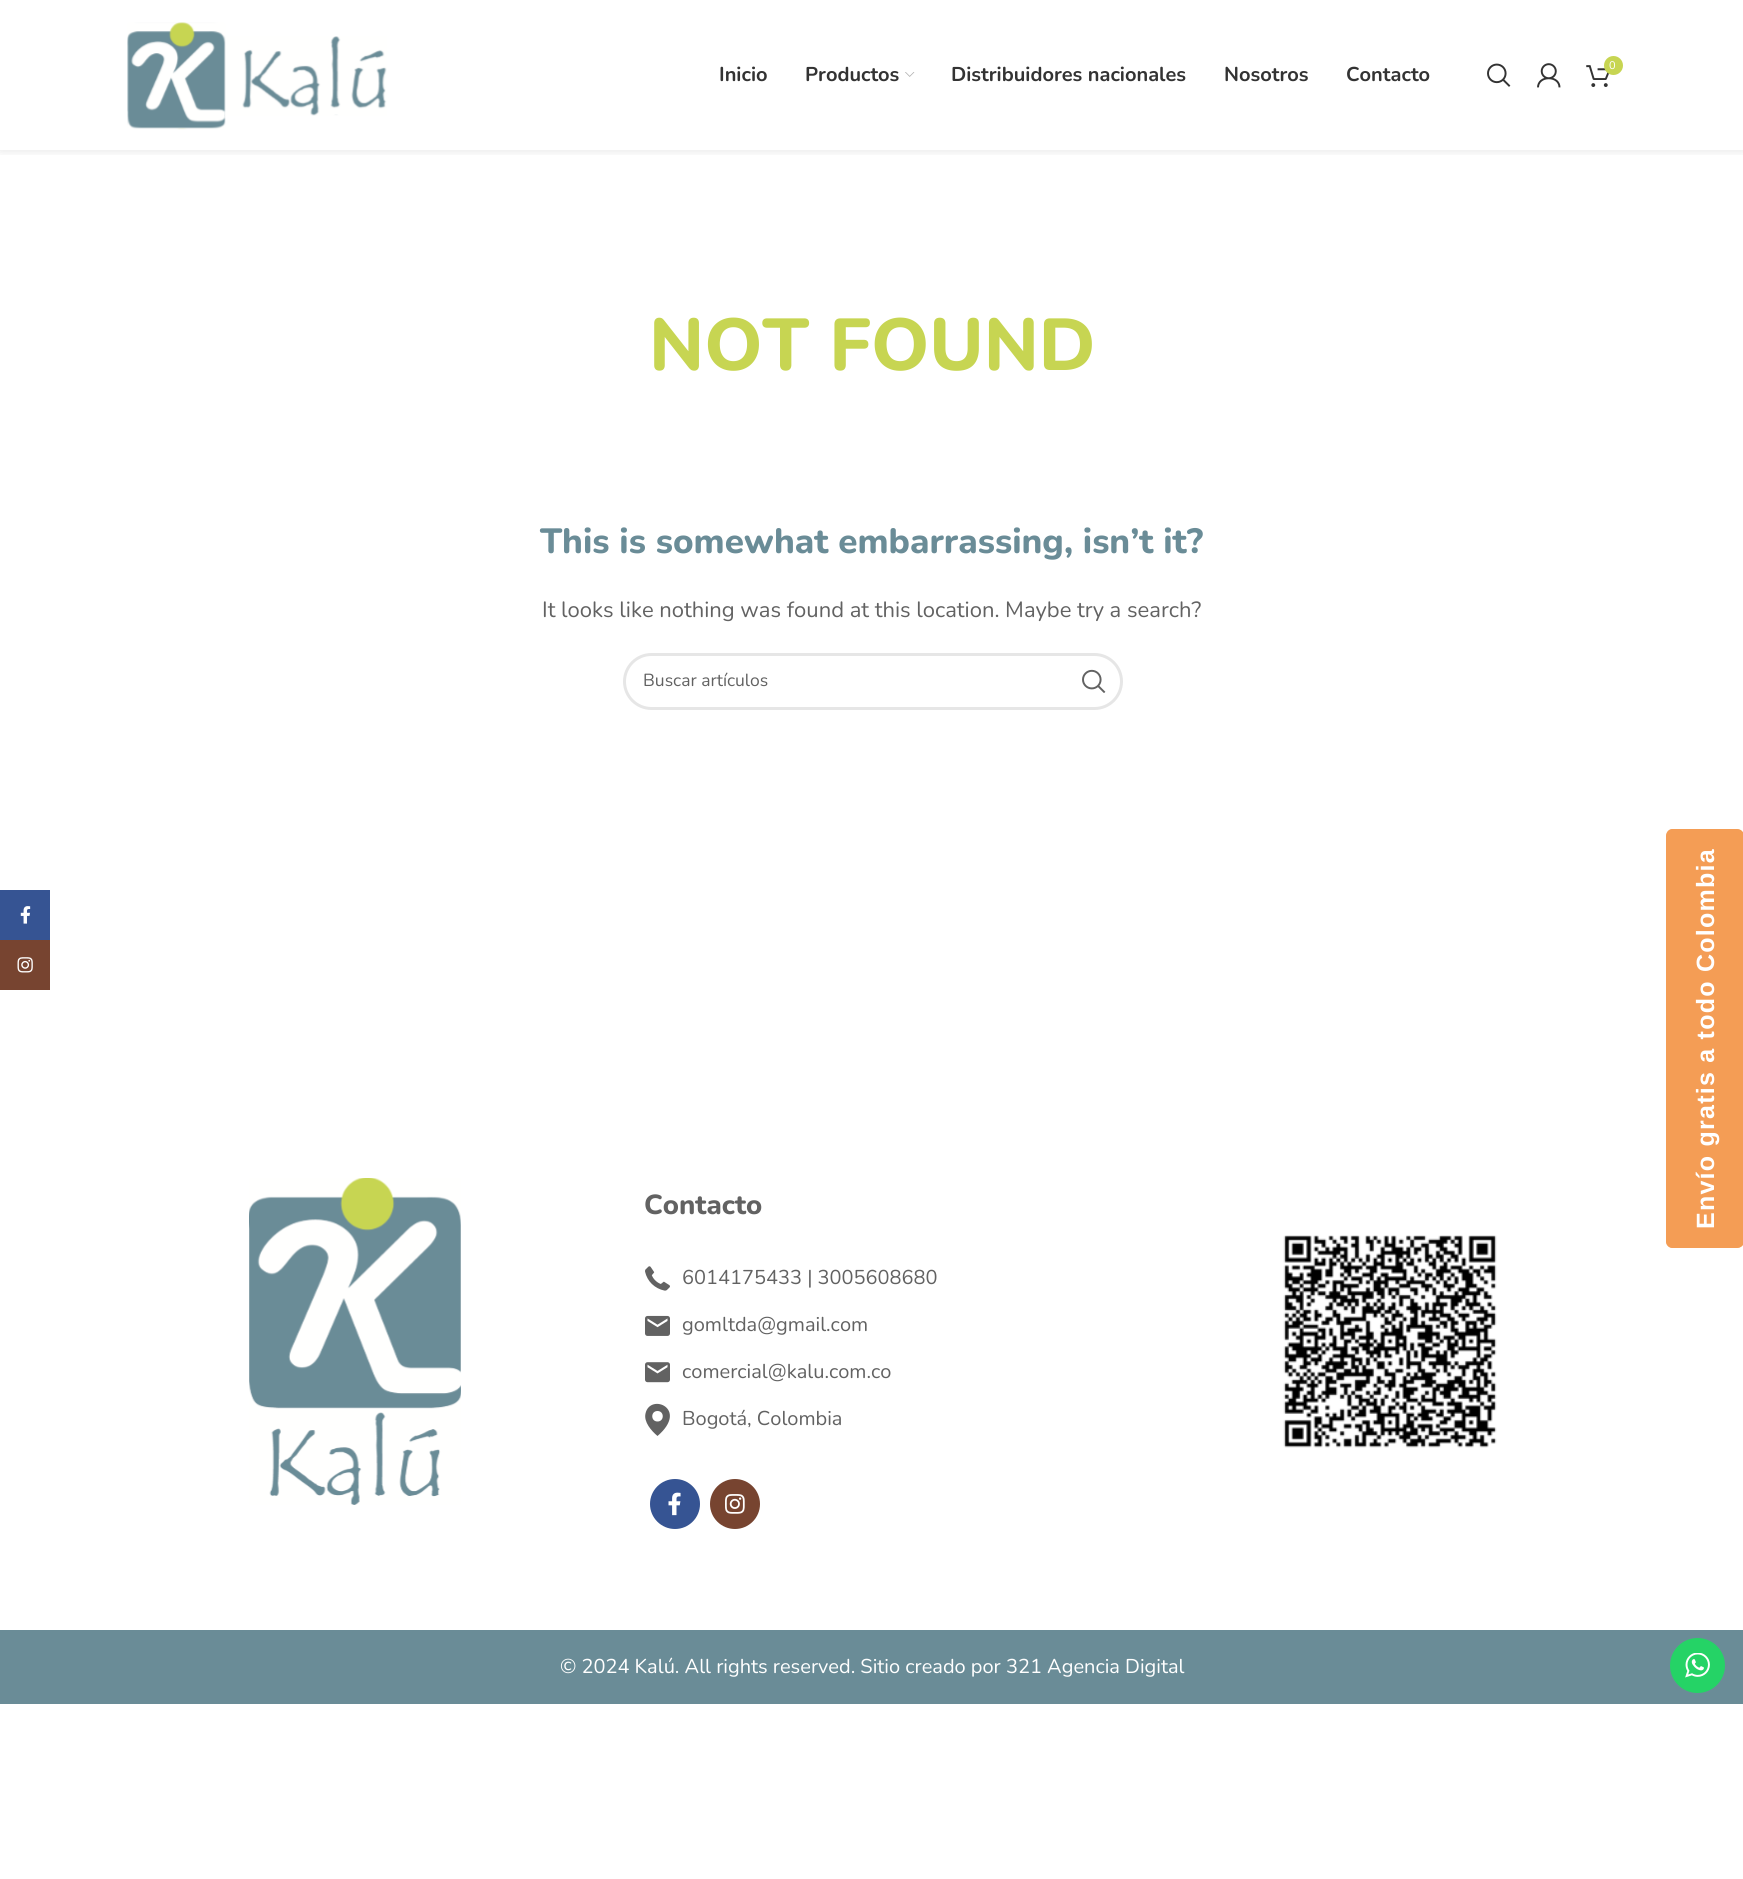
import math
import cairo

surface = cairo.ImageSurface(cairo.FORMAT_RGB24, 1743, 1879)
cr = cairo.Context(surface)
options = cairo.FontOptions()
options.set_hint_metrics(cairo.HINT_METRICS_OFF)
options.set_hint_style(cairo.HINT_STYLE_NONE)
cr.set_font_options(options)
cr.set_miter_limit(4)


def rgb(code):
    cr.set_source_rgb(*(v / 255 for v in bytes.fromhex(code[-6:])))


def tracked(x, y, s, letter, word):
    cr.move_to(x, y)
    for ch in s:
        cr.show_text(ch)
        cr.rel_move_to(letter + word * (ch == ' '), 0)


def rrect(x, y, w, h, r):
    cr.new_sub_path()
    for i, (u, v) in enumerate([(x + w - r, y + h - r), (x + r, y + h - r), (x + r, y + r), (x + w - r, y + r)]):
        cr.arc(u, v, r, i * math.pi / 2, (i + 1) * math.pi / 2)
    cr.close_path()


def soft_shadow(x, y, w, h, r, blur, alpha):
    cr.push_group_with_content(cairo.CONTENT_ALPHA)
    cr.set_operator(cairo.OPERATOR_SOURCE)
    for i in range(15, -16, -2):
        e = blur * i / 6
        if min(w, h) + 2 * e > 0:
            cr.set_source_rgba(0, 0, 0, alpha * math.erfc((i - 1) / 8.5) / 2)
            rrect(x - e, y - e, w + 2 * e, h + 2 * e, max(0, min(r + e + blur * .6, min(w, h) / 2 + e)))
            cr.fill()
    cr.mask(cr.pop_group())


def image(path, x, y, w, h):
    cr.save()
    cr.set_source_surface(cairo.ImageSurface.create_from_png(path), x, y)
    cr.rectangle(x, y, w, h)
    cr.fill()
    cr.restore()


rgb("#ffffff")
cr.paint()
rgb("#365493")
cr.rectangle(0, 890, 50, 50)
cr.fill()
image("img/1.png", 20, 906, 11, 18)
rgb("#774430")
cr.rectangle(0, 940, 50, 50)
cr.fill()
image("img/2.png", 17, 957, 16, 16)
cr.save()
cr.rectangle(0, 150, 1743, 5)
cr.clip()
rgb("#000000")
soft_shadow(0, 1, 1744, 150, 0, 5, 0.1)
cr.restore()
image("img/3.png", 127, 22, 260, 108)
image("img/4.png", 905, 72, 10, 5)
image("img/5.png", 1487, 63, 24, 24)
image("img/6.png", 1537, 63, 24, 25)
image("img/7.png", 1586, 65, 24, 22)
rgb("#c7d552")
cr.arc(1613.5, 65.5, 9.5, 0, 2 * math.pi)
cr.fill()
rrect(624.5, 654.5, 497, 54, 27)
rgb("#e6e6e6")
cr.set_line_width(3)
cr.stroke()
image("img/8.png", 1082, 669, 24, 24)
image("img/9.png", 249, 1178, 212, 327)
image("img/10.png", 645, 1266, 25, 25)
image("img/11.png", 645, 1315, 25, 21)
image("img/12.png", 645, 1362, 25, 21)
rgb("#626262")
cr.new_path()
cr.move_to(657.5, 1436)
cr.curve_to(651.5, 1431, 643.5, 1422, 645.5, 1413.5)
cr.curve_to(650, 1392.5, 689.5, 1408.5, 657.5, 1436)
cr.close_path()
cr.move_to(657.5, 1411)
cr.curve_to(650.5, 1411, 650.5, 1421.5, 657.5, 1421.5)
cr.curve_to(664.5, 1421.5, 664.5, 1411, 657.5, 1411)
cr.close_path()
cr.fill()
rgb("#365493")
cr.arc(675, 1504, 25, 0, 2 * math.pi)
cr.fill()
image("img/13.png", 668, 1492, 13, 24)
rgb("#774430")
cr.arc(735, 1504, 25, 0, 2 * math.pi)
cr.fill()
image("img/14.png", 725, 1494, 20, 20)
image("img/15.png", 1283, 1235, 214, 213)
rgb("#6a8c97")
cr.rectangle(0, 1630, 1743, 74)
cr.fill()
rgb("#f49d55")
cr.new_path()
cr.move_to(1666, 1242)
cr.line_to(1666, 836)
cr.curve_to(1666, 832, 1669, 829, 1672, 829)
cr.line_to(1737, 829)
cr.curve_to(1741, 829, 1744, 832, 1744, 836)
cr.line_to(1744, 1242)
cr.curve_to(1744, 1245, 1741, 1248, 1737, 1248)
cr.line_to(1672, 1248)
cr.curve_to(1669, 1248, 1666, 1245, 1666, 1242)
cr.close_path()
cr.fill()
cr.new_path()
cr.move_to(1669.5, 1241.5)
cr.line_to(1669.5, 835.5)
cr.curve_to(1669.5, 834, 1671, 832.5, 1672.5, 832.5)
cr.line_to(1737.5, 832.5)
cr.curve_to(1739, 832.5, 1740.5, 834, 1740.5, 835.5)
cr.line_to(1740.5, 1241.5)
cr.curve_to(1740.5, 1243.5, 1739, 1244.5, 1737.5, 1244.5)
cr.line_to(1672.5, 1244.5)
cr.curve_to(1671, 1244.5, 1669.5, 1243.5, 1669.5, 1241.5)
cr.close_path()
cr.set_line_width(6.2)
cr.stroke()
rgb("#25d366")
cr.arc(1697.5, 1665.5, 27.5, 0, 2 * math.pi)
cr.fill()
image("img/16.png", 1685, 1653, 25, 25)
cr.select_font_face("Nunito", cairo.FONT_SLANT_NORMAL, cairo.FONT_WEIGHT_BOLD)
cr.set_font_size(20)
rgb("#333333")
for x, y, s in [
    (719, 81, "Inicio"),
    (805, 81, "Productos"),
    (951, 81, "Distribuidores nacionales"),
    (1224, 81, "Nosotros"),
    (1346, 81, "Contacto"),
]:
    cr.move_to(x, y)
    cr.show_text(s)
cr.select_font_face("Nunito")
cr.set_font_size(11)
rgb("#ffffff")
cr.move_to(1609, 69)
cr.show_text("0")
cr.select_font_face("Nunito ExtraBold")
cr.set_font_size(73.25)
rgb("#c7d552")
cr.move_to(649, 370)
cr.show_text("NOT FOUND")
cr.set_font_size(35)
rgb("#6a8c97")
cr.move_to(540, 553)
cr.show_text("This is somewhat embarrassing, isn’t it?")
cr.select_font_face("Nunito")
cr.set_font_size(22)
rgb("#626262")
cr.move_to(542, 617)
cr.show_text("It looks like nothing was found at this location. Maybe try a search?")
cr.set_font_size(17.5)
cr.move_to(643, 686)
cr.show_text("Buscar artículos")
cr.select_font_face("Nunito ExtraBold")
cr.set_font_size(27.5)
cr.move_to(644, 1214)
cr.show_text("Contacto")
cr.select_font_face("Nunito")
cr.set_font_size(20)
for x, y, s in [
    (682, 1284, "6014175433 | 3005608680"),
    (682, 1331, "gomltda@gmail.com"),
    (682, 1378, "comercial@kalu.com.co"),
    (682, 1425, "Bogotá, Colombia"),
]:
    cr.move_to(x, y)
    cr.show_text(s)
rgb("#ffffff")
cr.move_to(560, 1673)
cr.show_text("© 2024 Kalú. All rights reserved. Sitio creado por 321 Agencia Digital")
cr.select_font_face("Liberation Sans", cairo.FONT_SLANT_NORMAL, cairo.FONT_WEIGHT_BOLD)
cr.set_font_size(25)
cr.save()
cr.translate(1714, 1229)
cr.rotate(-90 * math.pi / 180)
tracked(0, 0, "Envío gratis a todo Colombia", 1.25, 0)
cr.restore()
surface.write_to_png("page.png")
